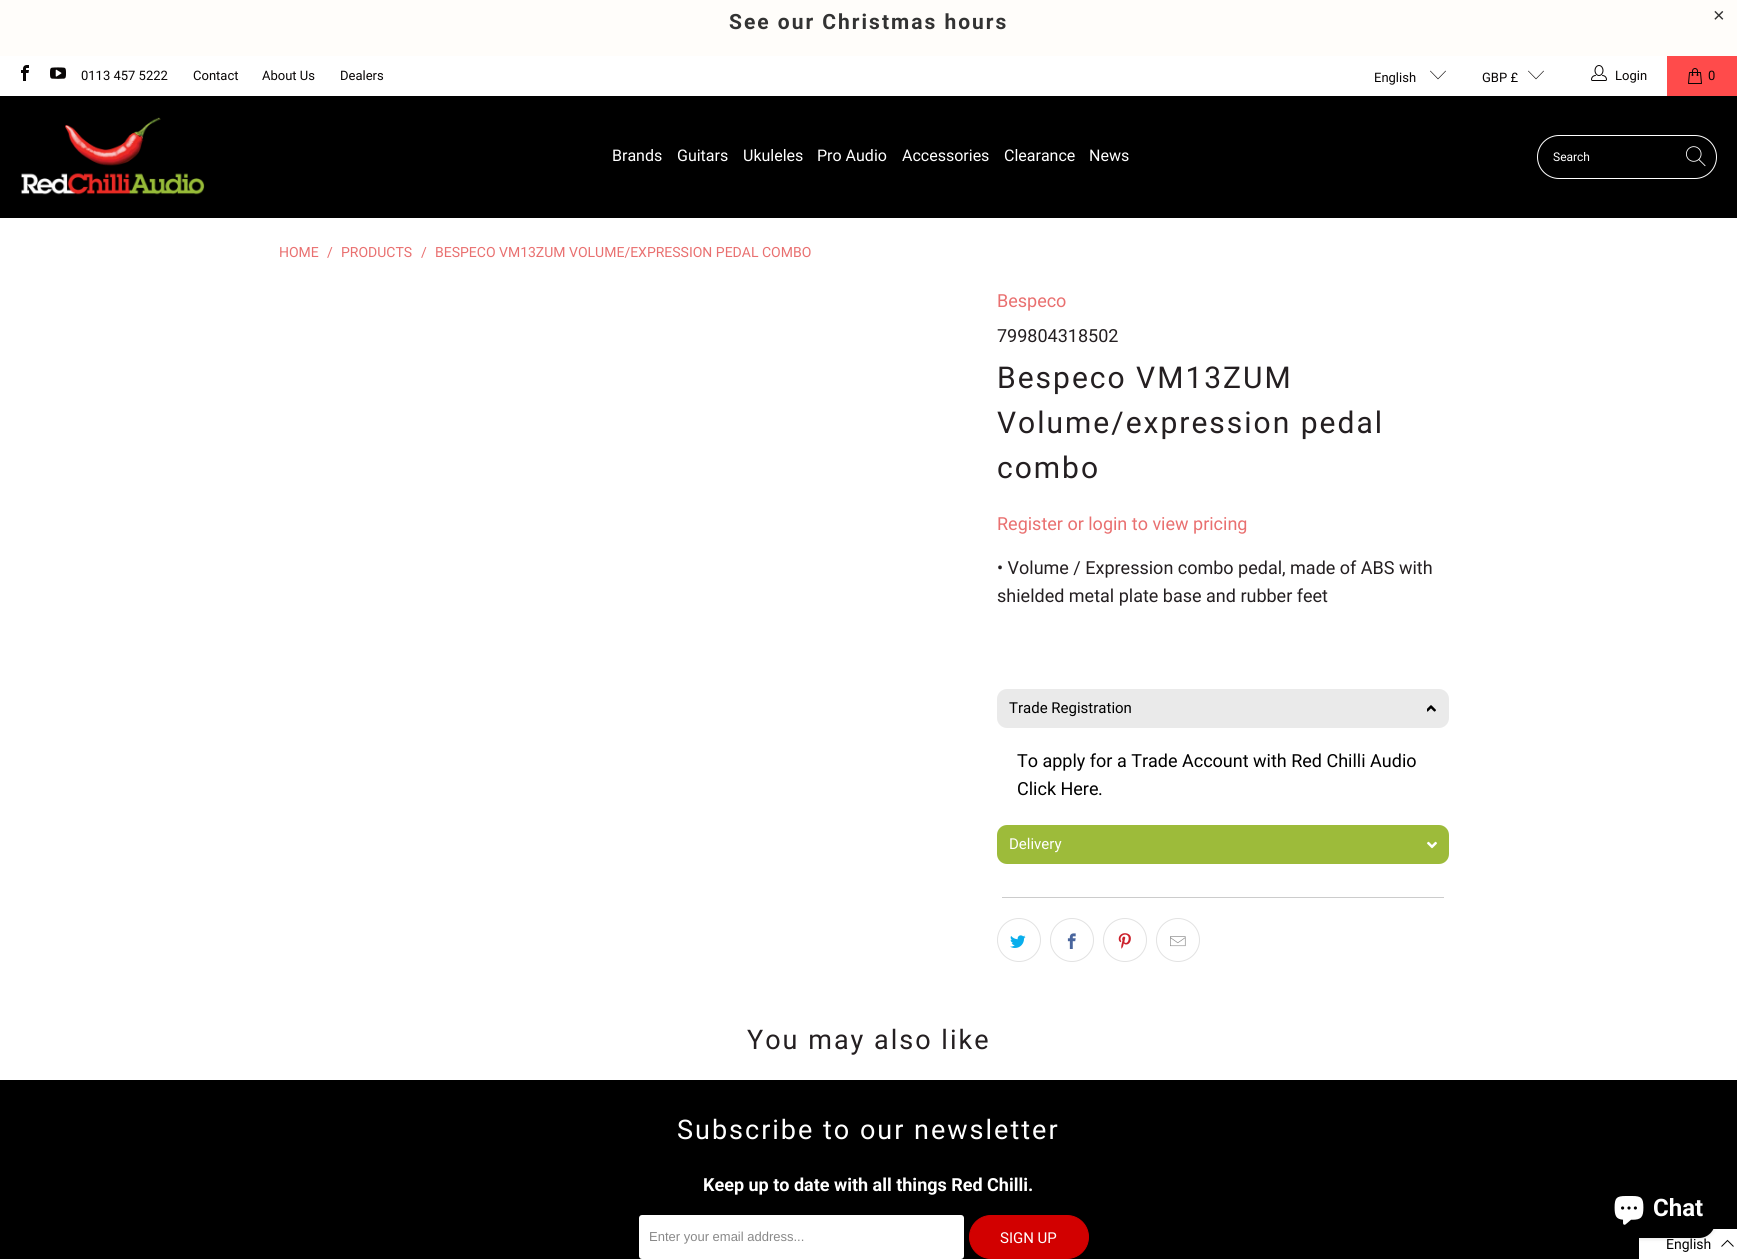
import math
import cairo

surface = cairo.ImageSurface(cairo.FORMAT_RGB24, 1737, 1259)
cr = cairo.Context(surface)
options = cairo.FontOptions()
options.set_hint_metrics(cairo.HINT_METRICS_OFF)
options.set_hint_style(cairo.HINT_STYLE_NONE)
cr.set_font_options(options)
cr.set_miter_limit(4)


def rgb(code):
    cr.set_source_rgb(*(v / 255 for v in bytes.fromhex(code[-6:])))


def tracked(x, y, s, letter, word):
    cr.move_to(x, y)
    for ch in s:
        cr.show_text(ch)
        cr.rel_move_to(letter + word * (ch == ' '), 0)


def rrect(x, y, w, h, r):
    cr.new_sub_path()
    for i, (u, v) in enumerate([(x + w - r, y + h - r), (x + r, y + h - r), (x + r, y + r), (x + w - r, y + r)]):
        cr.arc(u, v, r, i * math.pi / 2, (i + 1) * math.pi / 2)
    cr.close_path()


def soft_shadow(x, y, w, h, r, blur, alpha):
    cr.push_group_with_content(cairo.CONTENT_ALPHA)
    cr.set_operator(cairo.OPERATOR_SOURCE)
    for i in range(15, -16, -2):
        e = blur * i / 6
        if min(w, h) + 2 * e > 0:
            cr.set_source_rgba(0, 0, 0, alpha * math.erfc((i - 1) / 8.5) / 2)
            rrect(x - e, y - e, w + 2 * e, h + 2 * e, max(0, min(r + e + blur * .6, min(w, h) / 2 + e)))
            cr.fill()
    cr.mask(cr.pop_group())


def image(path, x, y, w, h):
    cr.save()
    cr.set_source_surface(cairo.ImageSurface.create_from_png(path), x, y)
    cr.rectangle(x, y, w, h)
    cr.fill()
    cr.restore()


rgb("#ffffff")
cr.paint()
rgb("#fffdfa")
cr.rectangle(0, 0, 1737, 56)
cr.fill()
image("img/1.png", 21, 65, 8, 16)
image("img/2.png", 50, 67, 16, 12)
image("img/3.png", 1430, 70, 16, 10)
image("img/3.png", 1528, 70, 16, 10)
image("img/4.png", 1591, 65, 16, 16)
rgb("#ff4b4b")
cr.rectangle(1667, 56, 70, 40)
cr.fill()
image("img/5.png", 1688, 68, 14, 16)
rgb("#000000")
cr.rectangle(0, 96, 1737, 122)
cr.fill()
image("img/6.png", 21, 117, 184, 78)
rrect(1537.5, 135.5, 179, 43, 21.5)
rgb("#ffffff")
cr.set_line_width(1)
cr.stroke()
image("img/7.png", 1686, 146, 20, 21)
rgb("#eaeaea")
rrect(997, 689, 452, 39, 10)
cr.fill()
image("img/8.png", 1427, 705, 9, 7)
rgb("#9dbb3a")
rrect(997, 825, 452, 39, 10)
cr.fill()
image("img/9.png", 1427, 841, 10, 8)
rgb("#cccccc")
cr.rectangle(1002, 897, 442, 1)
cr.fill()
cr.arc(1019, 940, 21.5, 0, 2 * math.pi)
rgb("#e2e2e2")
cr.stroke()
image("img/10.png", 1010, 935, 16, 13)
cr.arc(1072, 940, 21.5, 0, 2 * math.pi)
cr.stroke()
image("img/11.png", 1067, 933, 9, 16)
cr.arc(1125, 940, 21.5, 0, 2 * math.pi)
cr.stroke()
image("img/12.png", 1118, 933, 13, 16)
cr.arc(1178, 940, 21.5, 0, 2 * math.pi)
cr.stroke()
image("img/13.png", 1170, 936, 16, 11)
rgb("#000000")
cr.rectangle(0, 1080, 1737, 179)
cr.fill()
rgb("#ffffff")
rrect(639, 1215, 325, 44, 3)
cr.fill()
rgb("#d20000")
rrect(969.5, 1215.5, 119, 43, 21.5)
cr.fill_preserve()
cr.stroke()
rgb("#ffffff")
cr.rectangle(1639, 1229, 98, 30)
cr.fill()
cr.new_path()
cr.move_to(1733.5, 1246.5)
cr.line_to(1727.5, 1240.5)
cr.line_to(1721.5, 1246.5)
rgb("#000000")
cr.stroke()
rgb("#000000")
soft_shadow(1602, 1178, 113, 60, 16, 2.5, 0.15)
rgb("#000000")
rrect(1602, 1178, 113, 60, 16)
cr.fill()
image("img/14.png", 1614, 1196, 30, 29)
cr.select_font_face("Roboto", cairo.FONT_SLANT_NORMAL, cairo.FONT_WEIGHT_BOLD)
cr.set_font_size(21)
rgb("#333333")
tracked(729, 29, "See our Christmas hours", 2, 0)
cr.select_font_face("Liberation Sans")
cr.set_font_size(20)
tracked(1713, 22, "×", 2, 0)
cr.select_font_face("Roboto")
cr.set_font_size(13)
rgb("#080505")
for x, y, s in [
    (81, 80, "0113 457 5222"),
    (193, 80, "Contact"),
    (262, 80, "About Us"),
    (340, 80, "Dealers"),
    (1374, 82, "English"),
    (1482, 82, "GBP £"),
    (1615, 80, "Login"),
    (1708, 80, "0"),
]:
    cr.move_to(x, y)
    cr.show_text(s)
cr.set_font_size(16)
rgb("#ffffff")
for x, y, s in [
    (612, 161, "Brands"),
    (677, 161, "Guitars"),
    (743, 161, "Ukuleles"),
    (817, 161, "Pro Audio"),
    (902, 161, "Accessories"),
    (1004, 161, "Clearance"),
    (1089, 161, "News"),
]:
    cr.move_to(x, y)
    cr.show_text(s)
cr.set_font_size(12)
cr.move_to(1553, 161)
cr.show_text("Search")
cr.set_font_size(14)
rgb("#e97070")
for x, y, s in [
    (279, 257, "HOME"),
    (327, 257, "/"),
    (341, 257, "PRODUCTS"),
    (421, 257, "/"),
    (435, 257, "BESPECO VM13ZUM VOLUME/EXPRESSION PEDAL COMBO"),
]:
    cr.move_to(x, y)
    cr.show_text(s)
cr.set_font_size(18)
cr.move_to(997, 307)
cr.show_text("Bespeco")
rgb("#241f21")
cr.move_to(997, 342)
cr.show_text("799804318502")
cr.set_font_size(30)
for x, y, s in [
    (997, 388, "Bespeco VM13ZUM"),
    (997, 433, "Volume/expression pedal"),
    (997, 478, "combo"),
]:
    tracked(x, y, s, 2, 0)
cr.set_font_size(18)
rgb("#e97070")
cr.move_to(997, 530)
cr.show_text("Register or login to view pricing")
rgb("#241f21")
cr.move_to(997, 574)
cr.show_text("• Volume / Expression combo pedal, made of ABS with")
cr.move_to(997, 602)
cr.show_text("shielded metal plate base and rubber feet")
cr.set_font_size(15)
rgb("#000000")
cr.move_to(1009, 713)
cr.show_text("Trade Registration")
cr.set_font_size(18)
for x, y, s in [
    (1017, 767, "To apply for a Trade Account with Red Chilli Audio"),
    (1017, 795, "Click Here"),
    (1098, 795, "."),
]:
    cr.move_to(x, y)
    cr.show_text(s)
cr.set_font_size(15)
rgb("#ffffff")
cr.move_to(1009, 849)
cr.show_text("Delivery")
cr.set_font_size(27)
rgb("#241f21")
tracked(747, 1049, "You may also like", 2, 0)
rgb("#ffffff")
tracked(677, 1139, "Subscribe to our newsletter", 2, 0)
cr.select_font_face("Roboto", cairo.FONT_SLANT_NORMAL, cairo.FONT_WEIGHT_BOLD)
cr.set_font_size(18)
cr.move_to(703, 1191)
cr.show_text("Keep up to date with all things Red Chilli.")
cr.select_font_face("Liberation Sans")
cr.set_font_size(13)
rgb("#888888")
cr.move_to(649, 1241)
cr.show_text("Enter your email address...")
cr.select_font_face("Roboto")
cr.set_font_size(15)
rgb("#ffffff")
cr.move_to(1000, 1243)
cr.show_text("SIGN UP")
cr.select_font_face("Roboto", cairo.FONT_SLANT_NORMAL, cairo.FONT_WEIGHT_BOLD)
cr.set_font_size(24)
cr.move_to(1653, 1216)
cr.show_text("Chat")
cr.select_font_face("Roboto")
cr.set_font_size(14)
rgb("#000000")
cr.move_to(1666, 1249)
cr.show_text("English")
surface.write_to_png("page.png")
